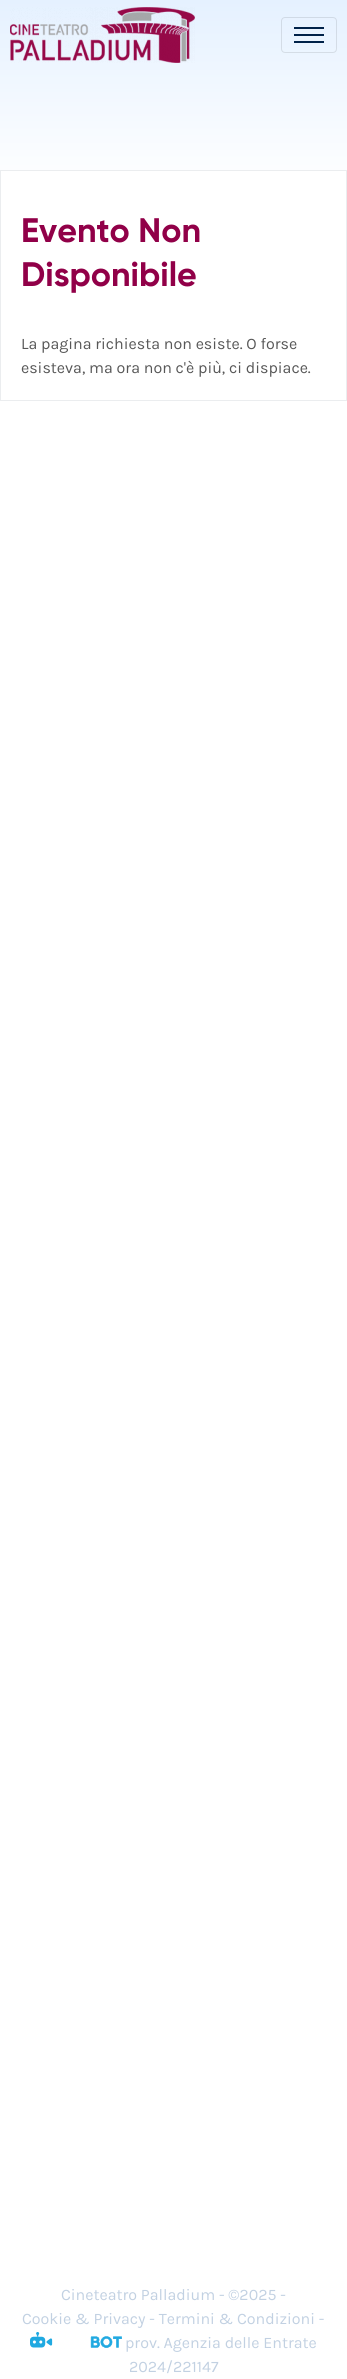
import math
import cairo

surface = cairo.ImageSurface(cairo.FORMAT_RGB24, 347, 2379)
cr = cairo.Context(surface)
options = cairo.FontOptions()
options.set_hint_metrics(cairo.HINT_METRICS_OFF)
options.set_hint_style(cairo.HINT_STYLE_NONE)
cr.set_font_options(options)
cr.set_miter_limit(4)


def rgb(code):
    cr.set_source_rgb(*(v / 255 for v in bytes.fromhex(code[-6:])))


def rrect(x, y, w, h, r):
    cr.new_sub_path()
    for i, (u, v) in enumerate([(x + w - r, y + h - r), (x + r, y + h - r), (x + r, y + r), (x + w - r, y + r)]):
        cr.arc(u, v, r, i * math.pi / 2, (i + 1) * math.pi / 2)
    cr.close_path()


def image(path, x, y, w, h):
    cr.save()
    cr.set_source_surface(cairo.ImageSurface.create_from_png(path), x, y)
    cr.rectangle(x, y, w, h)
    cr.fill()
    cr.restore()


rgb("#ffffff")
cr.paint()
gradient = cairo.LinearGradient(173, 0, 174, 2379)
gradient.add_color_stop_rgba(0, 0.898, 0.945, 1, 1)
gradient.add_color_stop_rgba(0.08, 1, 1, 1, 1)
cr.set_source(gradient)
cr.rectangle(0, 0, 347, 172)
cr.fill()
image("img/1.png", 10, 7, 185, 56)
rrect(281.5, 17.5, 55, 35, 3.5)
cr.set_source_rgba(0, 0, 0, 0.1)
cr.set_line_width(1)
cr.stroke()
for x, y, w, h, color in [
    (294, 27, 30, 2, "#002249"),
    (294, 34, 30, 2, "#002249"),
    (294, 41, 30, 2, "#002249"),
    (1, 171, 345, 1, "#ffffff"),
]:
    rgb(color)
    cr.rectangle(x, y, w, h)
    cr.fill()
cr.rectangle(0.5, 170.5, 346, 230)
rgb("#ebedef")
cr.stroke()
image("img/2.png", 30, 2332, 92, 16)
cr.select_font_face("Gilroy", cairo.FONT_SLANT_NORMAL, cairo.FONT_WEIGHT_BOLD)
cr.set_font_size(34)
rgb("#910048")
cr.move_to(21, 242)
cr.show_text("Evento Non")
cr.move_to(21, 286)
cr.show_text("Disponibile")
cr.select_font_face("Karla")
cr.set_font_size(16)
rgb("#575757")
cr.move_to(21, 349)
cr.show_text("La pagina richiesta non esiste. O forse")
cr.move_to(21, 373)
cr.show_text("esisteva, ma ora non c'è più, ci dispiace.")
rgb("#c2d1e2")
for x, y, s in [
    (61, 2300, "Cineteatro Palladium - ©2025 -"),
    (22, 2324, "Cookie & Privacy - Termini & Condizioni -"),
    (125, 2348, "prov. Agenzia delle Entrate"),
    (129, 2372, "2024/221147"),
]:
    cr.move_to(x, y)
    cr.show_text(s)
surface.write_to_png("page.png")
